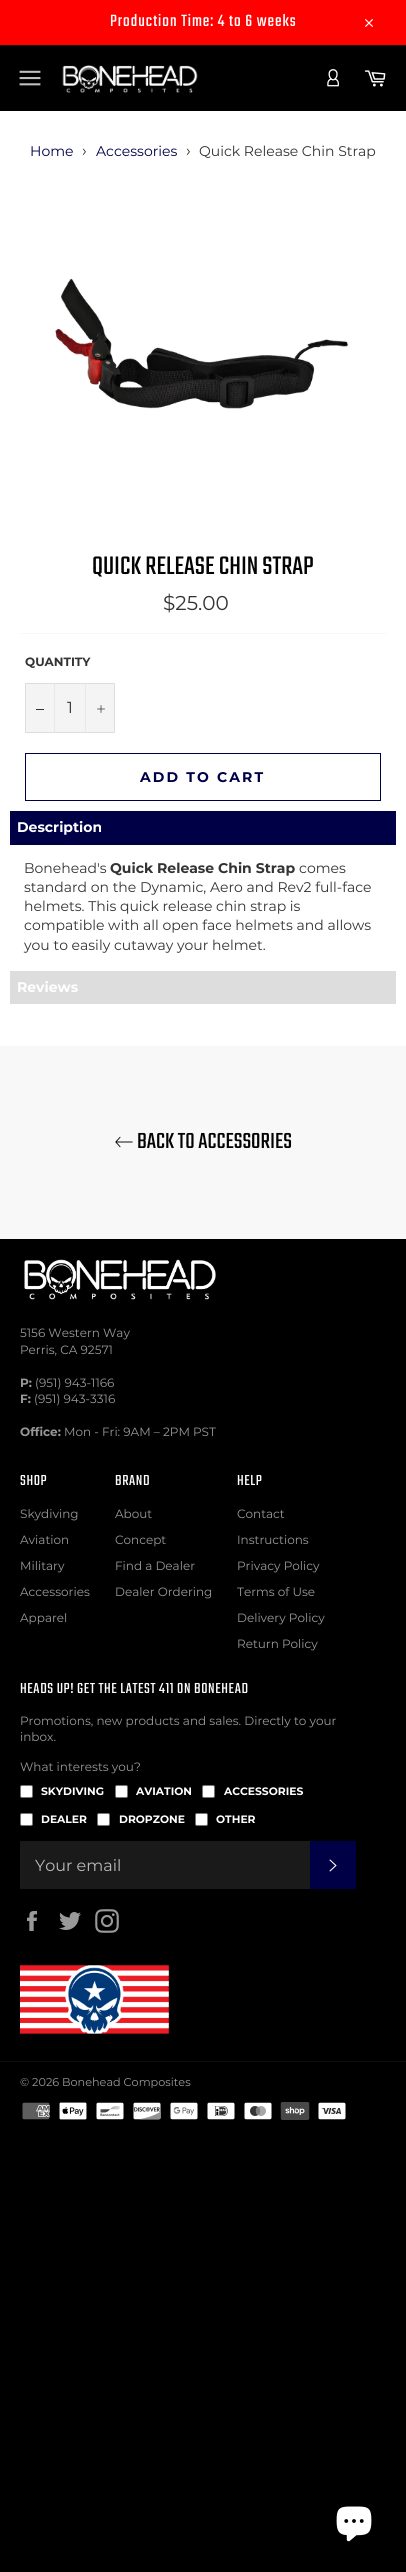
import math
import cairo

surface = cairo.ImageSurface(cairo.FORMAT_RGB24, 406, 2572)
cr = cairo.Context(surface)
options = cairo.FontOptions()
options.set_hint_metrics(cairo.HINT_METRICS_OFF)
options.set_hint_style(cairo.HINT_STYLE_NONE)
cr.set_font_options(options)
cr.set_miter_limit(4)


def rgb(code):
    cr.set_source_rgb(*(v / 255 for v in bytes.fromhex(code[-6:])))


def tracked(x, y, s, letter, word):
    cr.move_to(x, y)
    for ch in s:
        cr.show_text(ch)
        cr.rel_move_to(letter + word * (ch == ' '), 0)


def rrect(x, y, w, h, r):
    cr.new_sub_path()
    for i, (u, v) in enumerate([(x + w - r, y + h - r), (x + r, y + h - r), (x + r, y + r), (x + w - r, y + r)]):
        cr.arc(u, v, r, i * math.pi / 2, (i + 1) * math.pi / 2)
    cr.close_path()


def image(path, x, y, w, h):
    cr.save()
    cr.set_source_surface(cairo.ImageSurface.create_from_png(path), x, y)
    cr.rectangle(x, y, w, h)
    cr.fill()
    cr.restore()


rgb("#000000")
cr.paint()
rgb("#ff0000")
cr.rectangle(0, 0, 406, 45)
cr.fill()
image("img/1.png", 365, 19, 8, 8)
rgb("#0d0d0d")
cr.rectangle(0, 45, 406, 1)
cr.fill()
image("img/2.png", 19, 70, 22, 16)
image("img/3.png", 62, 65, 136, 28)
image("img/4.png", 327, 69, 12, 18)
image("img/5.png", 364, 70, 22, 17)
rgb("#ffffff")
cr.rectangle(0, 111, 406, 935)
cr.fill()
image("img/6.png", 55, 278, 293, 131)
rgb("#f8f8f8")
cr.rectangle(20, 633, 366, 1)
cr.fill()
rgb("#f4f4f4")
cr.rectangle(25.5, 683.5, 89, 49)
cr.fill_preserve()
rgb("#dddddd")
cr.set_line_width(1)
cr.stroke()
for x, y, w, h, color in [
    (54, 683, 1, 50, "#e7e7e7"),
    (36, 709, 8, 1, "#333333"),
    (85, 683, 1, 50, "#e7e7e7"),
]:
    rgb(color)
    cr.rectangle(x, y, w, h)
    cr.fill()
image("img/7.png", 97, 705, 8, 8)
cr.rectangle(25.5, 753.5, 355, 47)
rgb("#000047")
cr.stroke()
for x, y, w, h, color in [
    (10, 811, 386, 34, "#000047"),
    (10, 971, 386, 33, "#dddddd"),
    (0, 1046, 406, 193, "#f8f8f8"),
]:
    rgb(color)
    cr.rectangle(x, y, w, h)
    cr.fill()
image("img/8.png", 115, 1136, 18, 12)
image("img/9.png", 24, 1259, 192, 41)
rgb("#ffffff")
rrect(20.5, 1785.5, 12, 12, 1.5)
cr.fill_preserve()
rgb("#767676")
cr.stroke()
rgb("#ffffff")
rrect(115.5, 1785.5, 12, 12, 1.5)
cr.fill_preserve()
rgb("#767676")
cr.stroke()
rgb("#ffffff")
rrect(202.5, 1785.5, 12, 12, 1.5)
cr.fill_preserve()
rgb("#767676")
cr.stroke()
rgb("#ffffff")
rrect(20.5, 1813.5, 12, 12, 1.5)
cr.fill_preserve()
rgb("#767676")
cr.stroke()
rgb("#ffffff")
rrect(97.5, 1813.5, 12, 12, 1.5)
cr.fill_preserve()
rgb("#767676")
cr.stroke()
rgb("#ffffff")
rrect(195.5, 1813.5, 12, 12, 1.5)
cr.fill_preserve()
rgb("#767676")
cr.stroke()
rgb("#1a1a1a")
cr.rectangle(20, 1841, 290, 48)
cr.fill()
rgb("#000047")
cr.rectangle(310, 1841, 46, 48)
cr.fill()
image("img/10.png", 329, 1859, 8, 13)
image("img/11.png", 27, 1911, 10, 20)
image("img/12.png", 59, 1912, 22, 18)
image("img/13.png", 95, 1909, 24, 24)
image("img/14.png", 20, 1965, 150, 69)
rgb("#0d0d0d")
cr.rectangle(0, 2061, 406, 1)
cr.fill()
image("img/15.png", 22, 2102, 28, 18)
image("img/16.png", 59, 2102, 28, 18)
image("img/17.png", 96, 2102, 28, 18)
image("img/18.png", 133, 2102, 28, 18)
image("img/19.png", 170, 2102, 28, 18)
image("img/20.png", 207, 2102, 28, 18)
image("img/21.png", 244, 2102, 28, 18)
image("img/22.png", 280, 2102, 30, 18)
image("img/23.png", 318, 2102, 28, 18)
image("img/24.png", 336, 2506, 36, 36)
cr.select_font_face("Teko Light")
cr.set_font_size(18)
rgb("#ffffff")
tracked(110, 26, "Production Time: 4 to 6 weeks", 1, 0)
cr.select_font_face("Montserrat")
cr.set_font_size(14)
rgb("#000047")
cr.move_to(30, 156)
cr.show_text("Home")
cr.set_font_size(16)
rgb("#333333")
cr.move_to(82, 156)
cr.show_text("›")
cr.set_font_size(14)
rgb("#000047")
cr.move_to(96, 156)
cr.show_text("Accessories")
cr.set_font_size(16)
rgb("#333333")
cr.move_to(186, 156)
cr.show_text("›")
cr.set_font_size(14)
cr.move_to(199, 156)
cr.show_text("Quick Release Chin Strap")
cr.select_font_face("Teko Light")
cr.set_font_size(28)
rgb("#030303")
cr.move_to(92, 574)
cr.show_text("QUICK RELEASE CHIN STRAP")
cr.select_font_face("Montserrat")
cr.set_font_size(20)
rgb("#333333")
cr.move_to(163, 610)
cr.show_text("$25.00")
cr.select_font_face("Montserrat", cairo.FONT_SLANT_NORMAL, cairo.FONT_WEIGHT_BOLD)
cr.set_font_size(12)
cr.move_to(25, 666)
cr.show_text("QUANTITY")
cr.select_font_face("Montserrat")
cr.set_font_size(16)
cr.move_to(67, 713)
cr.show_text("1")
cr.select_font_face("Montserrat", cairo.FONT_SLANT_NORMAL, cairo.FONT_WEIGHT_BOLD)
cr.set_font_size(14)
rgb("#000047")
tracked(140, 782, "ADD TO CART", 2.1, 0)
rgb("#ffffff")
cr.move_to(17, 832)
cr.show_text("Description")
cr.select_font_face("Montserrat")
rgb("#333333")
cr.move_to(24, 873)
cr.show_text("Bonehead's")
cr.select_font_face("Montserrat", cairo.FONT_SLANT_NORMAL, cairo.FONT_WEIGHT_BOLD)
cr.move_to(110, 873)
cr.show_text("Quick Release Chin Strap")
cr.select_font_face("Montserrat")
for x, y, s in [
    (299, 873, "comes"),
    (24, 892, "standard on the Dynamic, Aero and Rev2 full-face"),
    (24, 911, "helmets. This quick release chin strap is"),
    (24, 930, "compatible with all open face helmets and allows"),
    (24, 950, "you to easily cutaway your helmet."),
]:
    cr.move_to(x, y)
    cr.show_text(s)
cr.select_font_face("Montserrat", cairo.FONT_SLANT_NORMAL, cairo.FONT_WEIGHT_BOLD)
rgb("#ffffff")
cr.move_to(17, 992)
cr.show_text("Reviews")
cr.select_font_face("Teko Light")
cr.set_font_size(24)
rgb("#030303")
cr.move_to(137, 1148)
cr.show_text("BACK TO ACCESSORIES")
cr.select_font_face("Montserrat")
cr.set_font_size(12)
rgb("#999999")
cr.move_to(20, 1337)
cr.show_text("5156 Western Way")
cr.move_to(20, 1354)
cr.show_text("Perris, CA 92571")
cr.select_font_face("Montserrat", cairo.FONT_SLANT_NORMAL, cairo.FONT_WEIGHT_BOLD)
cr.move_to(20, 1387)
cr.show_text("P:")
cr.select_font_face("Montserrat")
cr.move_to(35, 1387)
cr.show_text("(951) 943-1166")
cr.select_font_face("Montserrat", cairo.FONT_SLANT_NORMAL, cairo.FONT_WEIGHT_BOLD)
cr.move_to(20, 1403)
cr.show_text("F:")
cr.select_font_face("Montserrat")
cr.move_to(34, 1403)
cr.show_text("(951) 943-3316")
cr.select_font_face("Montserrat", cairo.FONT_SLANT_NORMAL, cairo.FONT_WEIGHT_BOLD)
cr.move_to(20, 1436)
cr.show_text("Office:")
cr.select_font_face("Montserrat")
cr.move_to(64, 1436)
cr.show_text("Mon - Fri: 9AM – 2PM PST")
cr.select_font_face("Teko Light")
cr.set_font_size(16)
rgb("#ffffff")
tracked(20, 1485, "SHOP", 0.6, 0)
cr.select_font_face("Montserrat")
cr.set_font_size(12)
rgb("#999999")
for x, y, s in [
    (20, 1518, "Skydiving"),
    (20, 1544, "Aviation"),
    (20, 1570, "Military"),
    (20, 1596, "Accessories"),
    (20, 1622, "Apparel"),
]:
    cr.move_to(x, y)
    cr.show_text(s)
cr.select_font_face("Teko Light")
cr.set_font_size(16)
rgb("#ffffff")
tracked(115, 1485, "BRAND", 0.6, 0)
cr.select_font_face("Montserrat")
cr.set_font_size(12)
rgb("#999999")
for x, y, s in [
    (115, 1518, "About"),
    (115, 1544, "Concept"),
    (115, 1570, "Find a Dealer"),
    (115, 1596, "Dealer Ordering"),
]:
    cr.move_to(x, y)
    cr.show_text(s)
cr.select_font_face("Teko Light")
cr.set_font_size(16)
rgb("#ffffff")
tracked(237, 1485, "HELP", 0.6, 0)
cr.select_font_face("Montserrat")
cr.set_font_size(12)
rgb("#999999")
for x, y, s in [
    (237, 1518, "Contact"),
    (237, 1544, "Instructions"),
    (237, 1570, "Privacy Policy"),
    (237, 1596, "Terms of Use"),
    (237, 1622, "Delivery Policy"),
    (237, 1648, "Return Policy"),
]:
    cr.move_to(x, y)
    cr.show_text(s)
cr.select_font_face("Teko Light")
cr.set_font_size(16)
rgb("#ffffff")
tracked(20, 1693, "HEADS UP! GET THE LATEST 411 ON BONEHEAD", 0.6, 0)
cr.select_font_face("Montserrat")
cr.set_font_size(12)
rgb("#999999")
for x, y, s in [
    (20, 1725, "Promotions, new products and sales. Directly to your"),
    (20, 1741, "inbox."),
    (20, 1771, "What interests you?"),
]:
    cr.move_to(x, y)
    cr.show_text(s)
cr.select_font_face("Montserrat", cairo.FONT_SLANT_NORMAL, cairo.FONT_WEIGHT_BOLD)
cr.set_font_size(10.75)
rgb("#ffffff")
for x, y, s in [
    (41, 1795, "SKYDIVING"),
    (136, 1795, "AVIATION"),
    (224, 1795, "ACCESSORIES"),
    (41, 1823, "DEALER"),
    (119, 1823, "DROPZONE"),
    (216, 1823, "OTHER"),
]:
    cr.move_to(x, y)
    cr.show_text(s)
cr.select_font_face("Montserrat")
cr.set_font_size(16)
rgb("#bababa")
cr.move_to(35, 1871)
cr.show_text("Your email")
cr.set_font_size(11.25)
rgb("#999999")
cr.move_to(20, 2086)
cr.show_text("© 2026 Bonehead Composites")
surface.write_to_png("page.png")
